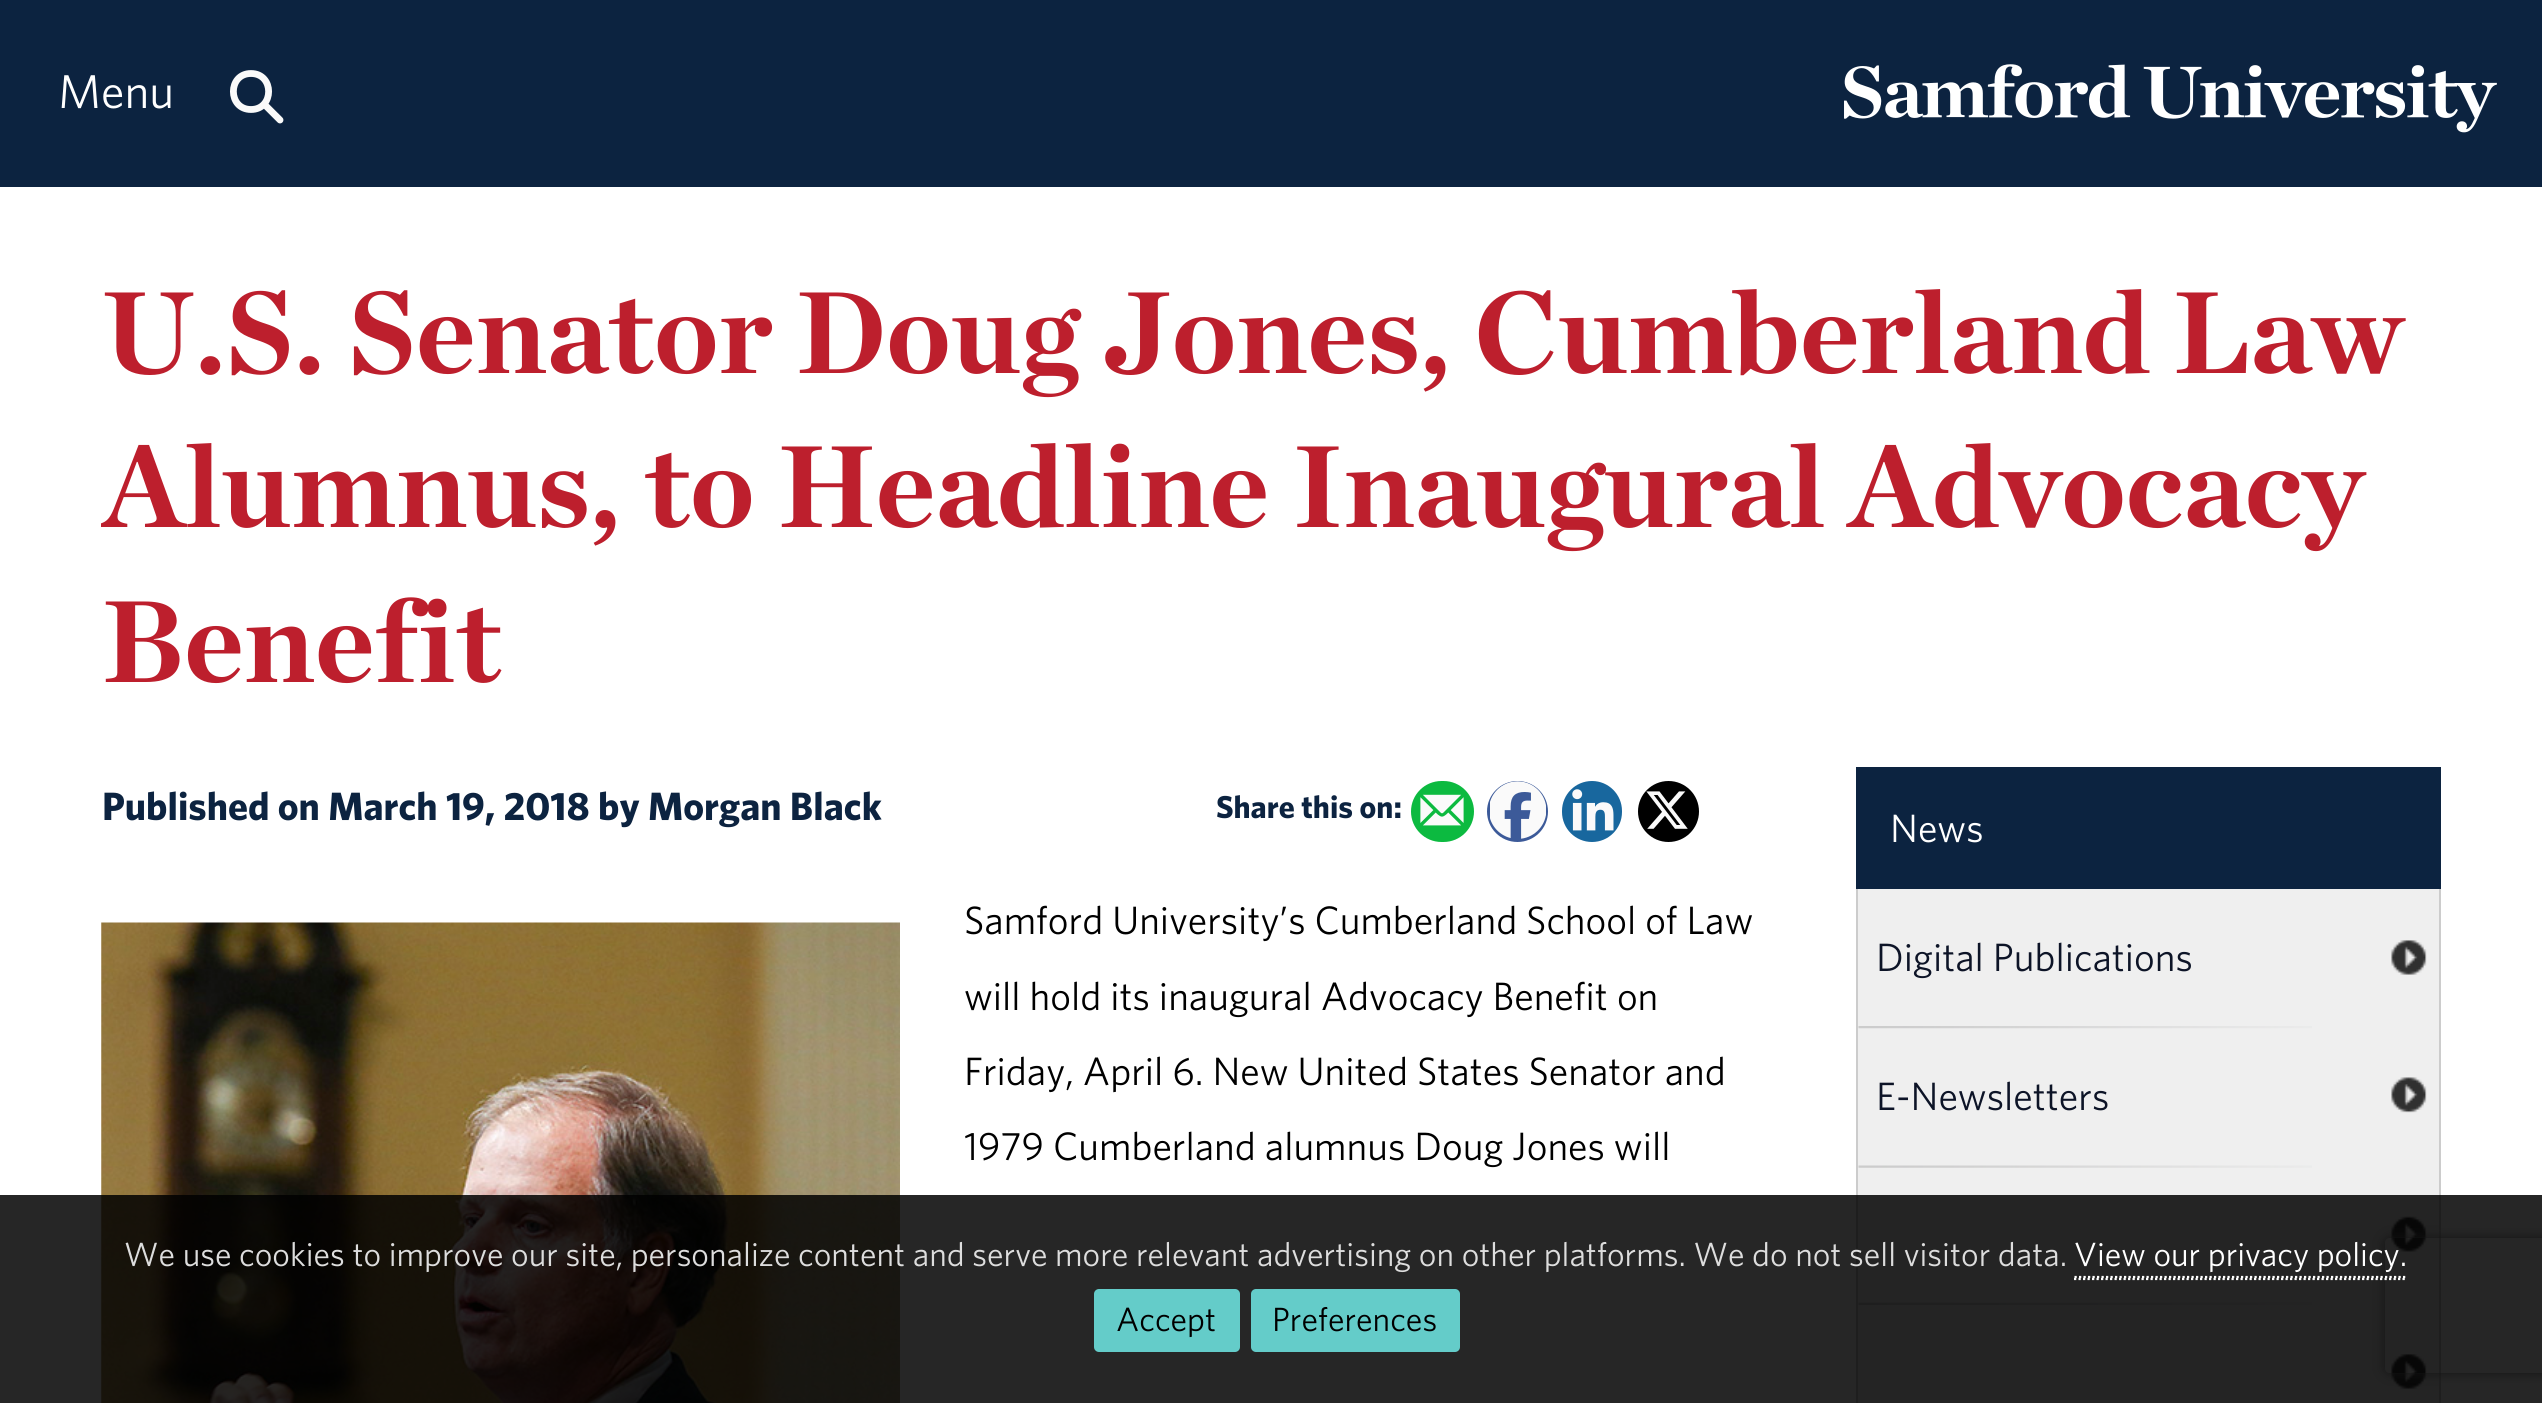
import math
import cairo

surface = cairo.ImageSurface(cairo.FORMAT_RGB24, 2542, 1403)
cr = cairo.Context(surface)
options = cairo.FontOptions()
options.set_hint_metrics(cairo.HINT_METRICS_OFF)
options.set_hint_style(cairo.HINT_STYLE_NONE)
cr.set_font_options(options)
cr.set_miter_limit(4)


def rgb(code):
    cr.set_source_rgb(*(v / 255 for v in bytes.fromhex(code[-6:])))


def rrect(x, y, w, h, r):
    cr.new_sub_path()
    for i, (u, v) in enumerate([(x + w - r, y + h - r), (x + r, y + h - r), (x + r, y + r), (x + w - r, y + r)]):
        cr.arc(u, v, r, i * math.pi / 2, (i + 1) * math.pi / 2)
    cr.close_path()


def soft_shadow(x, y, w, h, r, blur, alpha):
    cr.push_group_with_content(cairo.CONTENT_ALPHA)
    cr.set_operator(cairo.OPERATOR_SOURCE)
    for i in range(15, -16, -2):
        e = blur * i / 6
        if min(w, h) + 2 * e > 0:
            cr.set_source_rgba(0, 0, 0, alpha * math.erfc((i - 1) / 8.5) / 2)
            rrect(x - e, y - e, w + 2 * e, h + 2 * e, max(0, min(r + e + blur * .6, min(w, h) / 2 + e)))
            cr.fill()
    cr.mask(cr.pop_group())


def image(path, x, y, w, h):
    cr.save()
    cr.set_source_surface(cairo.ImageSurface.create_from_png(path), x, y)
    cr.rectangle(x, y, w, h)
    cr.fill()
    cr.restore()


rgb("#ffffff")
cr.paint()
rgb("#0c2340")
cr.rectangle(0, 0, 2542, 187)
cr.fill()
cr.new_path()
cr.move_to(251, 73.5)
cr.curve_to(274.5, 73.5, 274.5, 109.5, 251, 109.5)
cr.curve_to(227.5, 109.5, 227.5, 73.5, 251, 73.5)
cr.close_path()
cr.move_to(264.5, 104.5)
cr.line_to(280, 120)
cr.move_to(251, 73.5)
cr.curve_to(274.5, 73.5, 274.5, 109.5, 251, 109.5)
cr.curve_to(227.5, 109.5, 227.5, 73.5, 251, 73.5)
cr.close_path()
cr.move_to(264.5, 104.5)
cr.line_to(280, 120)
rgb("#fafafa")
cr.set_line_width(6.8)
cr.set_line_cap(cairo.LINE_CAP_ROUND)
cr.set_line_join(cairo.LINE_JOIN_ROUND)
cr.stroke()
image("img/1.png", 1844, 64, 653, 69)
rgb("#0cba40")
rrect(1411, 781, 63, 61, 30.5)
cr.fill()
image("img/2.png", 1420, 794, 44, 32)
rgb("#3c5a99")
cr.arc(1517.5, 811.5, 30.5, 0, 2 * math.pi)
cr.fill()
image("img/3.png", 1490, 781, 56, 58)
rgb("#18679e")
rrect(1562, 781, 60, 61, 30)
cr.fill()
image("img/4.png", 1572, 789, 42, 42)
rgb("#000000")
cr.arc(1668.5, 811.5, 30.5, 0, 2 * math.pi)
cr.fill()
image("img/5.png", 1646, 791, 42, 38)
image("img/6.png", 101, 922, 799, 481)
for x, y, w, h, color in [
    (1858, 889, 581, 514, "#efefef"),
    (1856, 767, 585, 122, "#0c2340"),
    (2439, 889, 2, 514, "#cccccc"),
    (1856, 889, 2, 514, "#cccccc"),
]:
    rgb(color)
    cr.rectangle(x, y, w, h)
    cr.fill()
image("img/7.png", 2391, 940, 36, 35)
image("img/8.png", 1858, 1026, 454, 3)
image("img/9.png", 2391, 1077, 36, 36)
image("img/10.png", 1858, 1165, 454, 3)
image("img/11.png", 2391, 1216, 36, 36)
image("img/12.png", 1858, 1302, 454, 3)
image("img/7.png", 2391, 1354, 36, 35)
cr.save()
cr.set_fill_rule(cairo.FILL_RULE_EVEN_ODD)
cr.new_path()
cr.move_to(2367, 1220)
cr.line_to(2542, 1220)
cr.line_to(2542, 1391)
cr.line_to(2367, 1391)
cr.close_path()
cr.move_to(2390, 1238)
cr.line_to(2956, 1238)
cr.curve_to(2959, 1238, 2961, 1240, 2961, 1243)
cr.line_to(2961, 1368)
cr.curve_to(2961, 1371, 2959, 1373, 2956, 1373)
cr.line_to(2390, 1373)
cr.curve_to(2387, 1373, 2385, 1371, 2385, 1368)
cr.line_to(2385, 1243)
cr.curve_to(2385, 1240, 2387, 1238, 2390, 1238)
cr.close_path()
cr.clip()
rgb("#808080")
soft_shadow(2385, 1238, 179, 135, 5, 5.5, 1)
cr.restore()
cr.set_source_rgba(0, 0, 0, 0.85)
cr.rectangle(0, 1195, 2542, 208)
cr.fill()
cr.new_path()
cr.move_to(2074.5, 1277)
cr.line_to(2407.5, 1277)
rgb("#ffffff")
cr.set_line_width(2.2)
cr.set_line_cap(cairo.LINE_CAP_BUTT)
cr.set_line_join(cairo.LINE_JOIN_MITER)
cr.set_dash([2.25, 2.25])
cr.stroke()
cr.new_path()
cr.move_to(2074, 1279)
cr.line_to(2407, 1279)
cr.stroke()
rgb("#64ccc9")
rrect(1094, 1289, 146, 63, 5)
cr.fill()
rrect(1251, 1289, 209, 63, 5)
cr.fill()
cr.select_font_face("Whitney")
cr.set_font_size(47.5)
rgb("#ffffff")
cr.move_to(58, 108)
cr.show_text("Menu")
cr.select_font_face("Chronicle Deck", cairo.FONT_SLANT_NORMAL, cairo.FONT_WEIGHT_BOLD)
cr.set_font_size(118.75)
rgb("#bd1f2d")
cr.move_to(102, 373)
cr.show_text("U.S. Senator Doug Jones, Cumberland Law")
cr.save()
cr.rectangle(101, 187, 2340, 531)
cr.clip()
cr.move_to(102, 527)
cr.show_text("Alumnus, to Headline Inaugural Advocacy")
cr.restore()
cr.move_to(102, 682)
cr.show_text("Benefit")
cr.select_font_face("Whitney", cairo.FONT_SLANT_NORMAL, cairo.FONT_WEIGHT_BOLD)
cr.set_font_size(39.6)
rgb("#0c2340")
cr.move_to(102, 820)
cr.show_text("Published on March 19, 2018 by Morgan Black")
cr.set_font_size(31.75)
cr.move_to(1216, 818)
cr.show_text("Share this on:")
cr.select_font_face("Whitney")
cr.set_font_size(39.6)
rgb("#000000")
for x, y, s in [
    (964, 934, "Samford University’s Cumberland School of Law"),
    (964, 1010, "will hold its inaugural Advocacy Benefit on"),
    (964, 1085, "Friday, April 6. New United States Senator and"),
    (964, 1160, "1979 Cumberland alumnus Doug Jones will"),
]:
    cr.move_to(x, y)
    cr.show_text(s)
rgb("#ffffff")
cr.move_to(1890, 842)
cr.show_text("News")
rgb("#0d1427")
cr.move_to(1876, 971)
cr.show_text("Digital Publications")
cr.move_to(1876, 1110)
cr.show_text("E-Newsletters")
cr.set_font_size(33.65)
rgb("#dddddd")
cr.move_to(124, 1266)
cr.show_text("We use cookies to improve our site, personalize content and serve more relevant advertising on other platforms. We do not sell visitor data.")
rgb("#ffffff")
cr.move_to(2074, 1266)
cr.show_text("View our privacy policy.")
rgb("#000000")
cr.move_to(1116, 1331)
cr.show_text("Accept")
cr.move_to(1272, 1331)
cr.show_text("Preferences")
surface.write_to_png("page.png")
